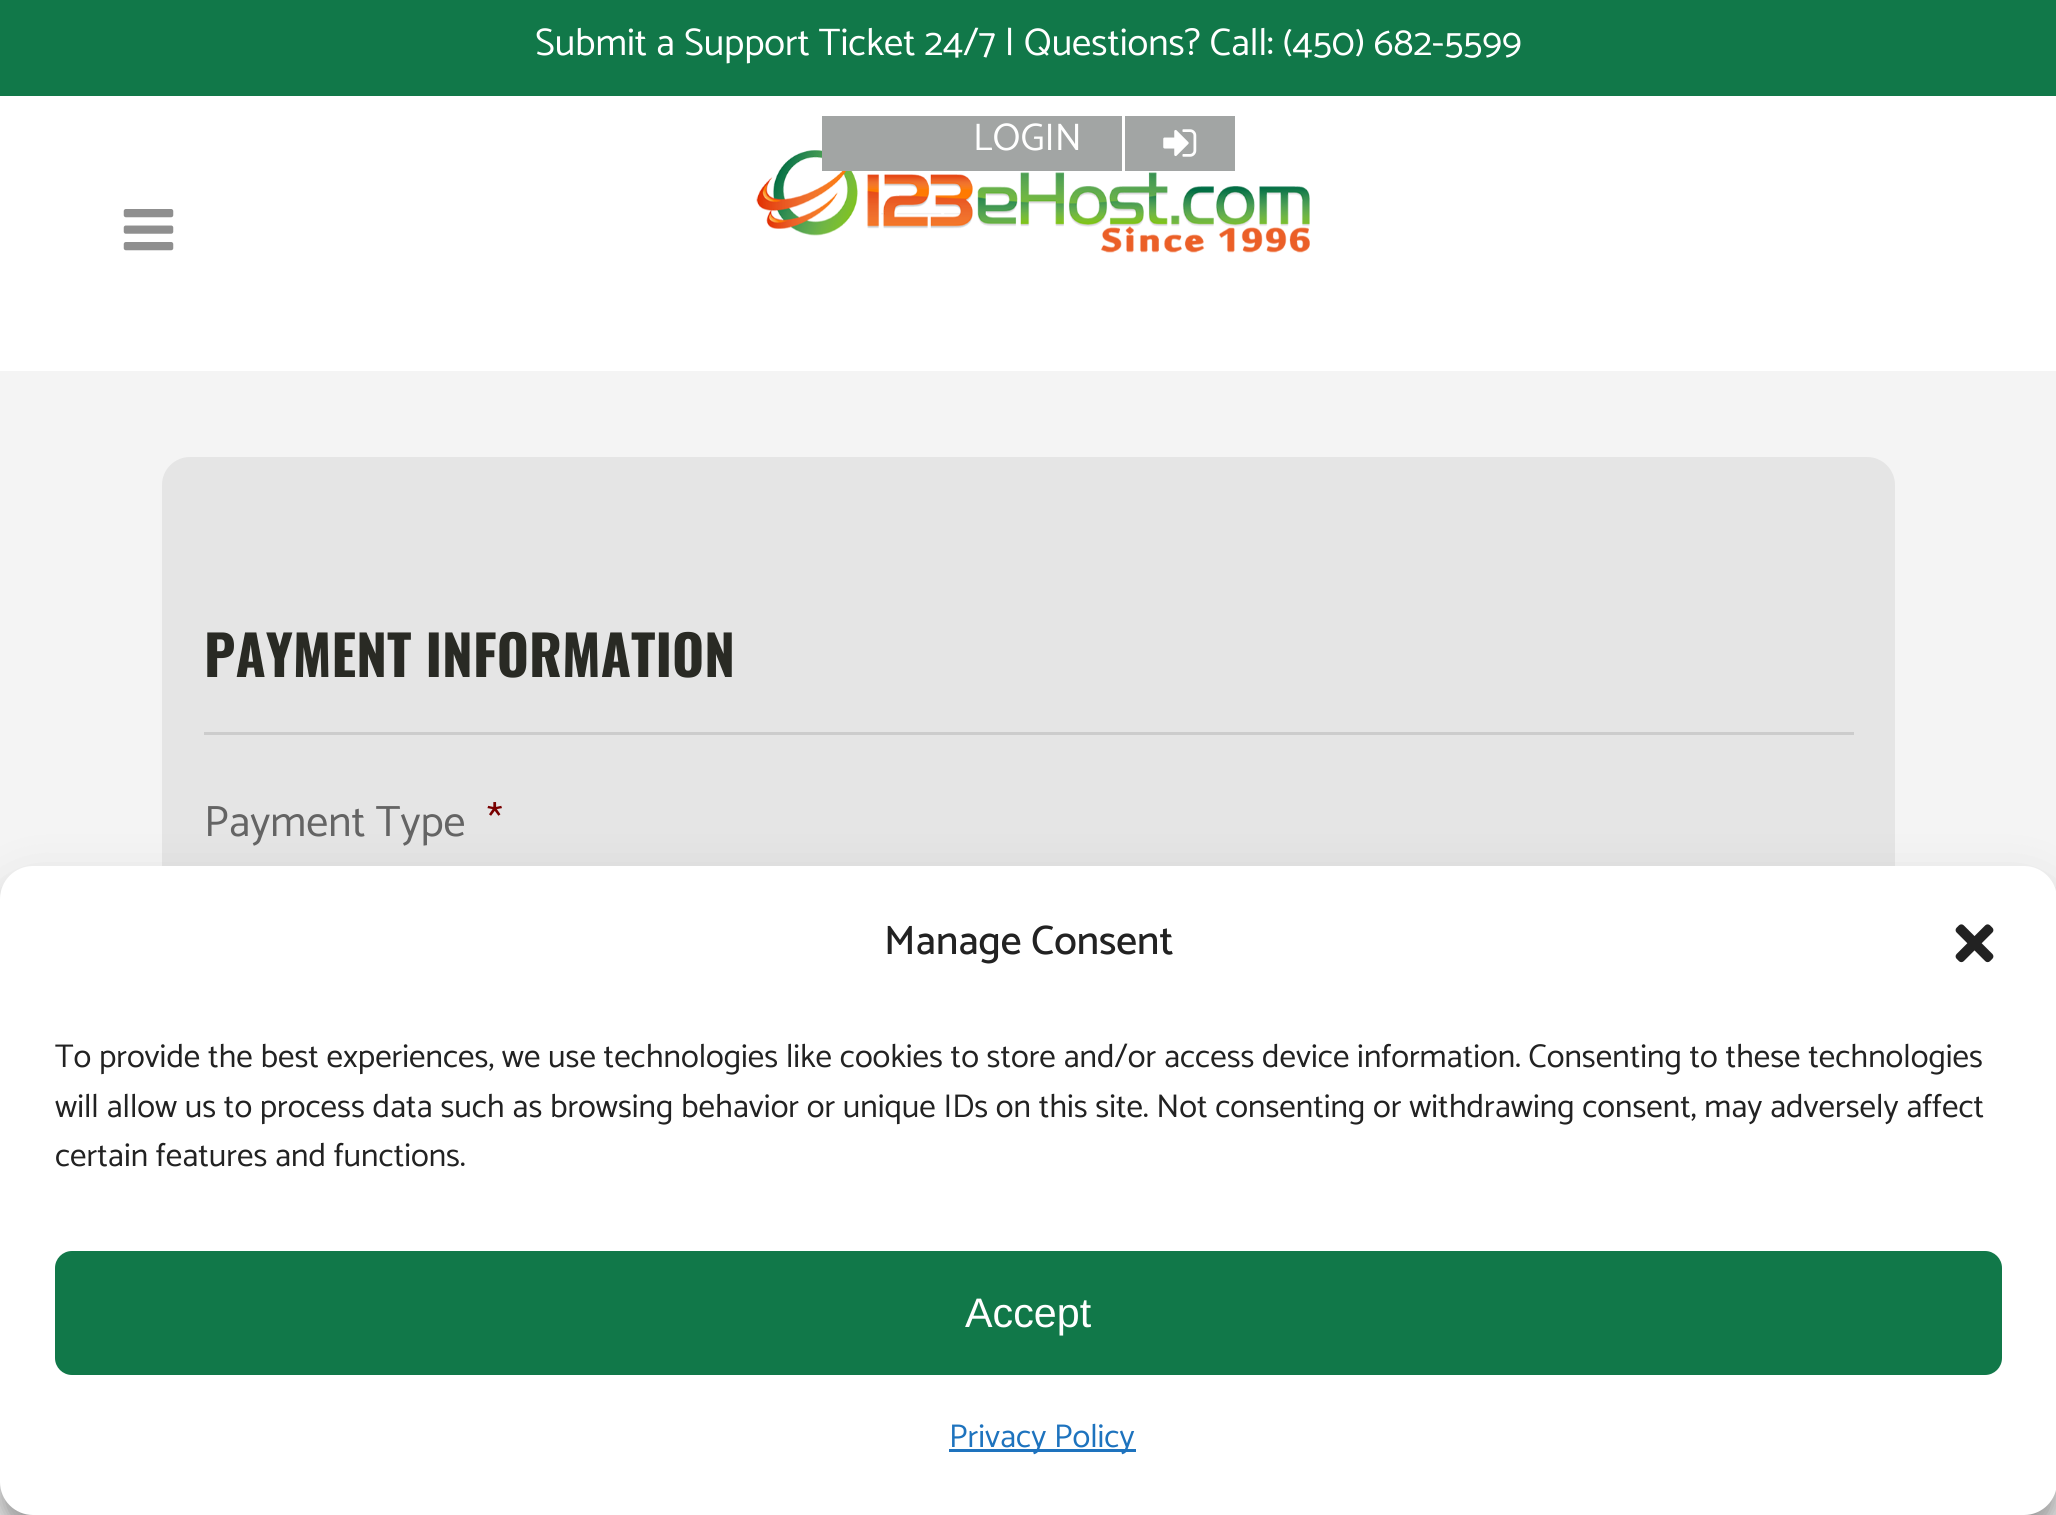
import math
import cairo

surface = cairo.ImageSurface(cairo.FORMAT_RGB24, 2056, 1515)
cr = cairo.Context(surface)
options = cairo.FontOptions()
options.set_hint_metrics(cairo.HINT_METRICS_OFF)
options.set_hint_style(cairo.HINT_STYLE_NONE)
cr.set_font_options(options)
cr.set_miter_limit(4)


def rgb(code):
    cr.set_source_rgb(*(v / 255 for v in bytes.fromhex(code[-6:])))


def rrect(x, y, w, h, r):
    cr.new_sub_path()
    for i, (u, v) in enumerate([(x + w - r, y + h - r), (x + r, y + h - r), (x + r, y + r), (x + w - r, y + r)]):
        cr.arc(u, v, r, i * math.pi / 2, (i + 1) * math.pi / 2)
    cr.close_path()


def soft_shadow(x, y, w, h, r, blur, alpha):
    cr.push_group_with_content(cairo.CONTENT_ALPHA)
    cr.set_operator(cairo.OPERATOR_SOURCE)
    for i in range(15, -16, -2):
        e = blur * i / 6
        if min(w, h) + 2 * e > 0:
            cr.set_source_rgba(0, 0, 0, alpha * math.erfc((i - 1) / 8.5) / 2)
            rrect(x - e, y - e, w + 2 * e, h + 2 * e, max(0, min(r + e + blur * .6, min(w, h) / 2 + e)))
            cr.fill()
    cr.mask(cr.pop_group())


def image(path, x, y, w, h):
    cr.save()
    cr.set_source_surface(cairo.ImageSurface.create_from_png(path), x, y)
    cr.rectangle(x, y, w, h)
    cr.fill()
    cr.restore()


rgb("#f4f4f4")
cr.paint()
rgb("#117849")
cr.rectangle(0, 0, 2056, 96)
cr.fill()
rgb("#ffffff")
cr.rectangle(0, 96, 2056, 275)
cr.fill()
image("img/3.png", 756, 150, 554, 103)
rgb("#a2a5a4")
cr.rectangle(822, 116, 413, 55)
cr.fill()
rgb("#ffffff")
cr.rectangle(1122, 116, 3, 55)
cr.fill()
image("img/1.png", 1163, 129, 34, 28)
image("img/2.png", 123, 209, 51, 42)
rgb("#e5e5e5")
rrect(162, 457, 1733, 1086, 28)
cr.fill()
rgb("#cccccc")
cr.rectangle(204, 732, 1650, 3)
cr.fill()
rgb("#000000")
soft_shadow(0, 883, 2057, 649, 33, 8, 0.23)
soft_shadow(0, 894, 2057, 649, 33, 27.5, 0.19)
rgb("#ffffff")
rrect(0, 866, 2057, 649, 33)
cr.fill()
image("img/4.png", 1955, 924, 39, 39)
rgb("#117849")
rrect(56.5, 1252.5, 1944, 121, 15.5)
cr.fill_preserve()
cr.set_line_width(3)
cr.stroke()
rgb("#1e73be")
cr.rectangle(949, 1449, 187, 3)
cr.fill()
cr.select_font_face("Catamaran")
cr.set_font_size(38.5)
rgb("#ffffff")
cr.move_to(535, 55)
cr.show_text("Submit a Support Ticket 24/7 | Questions? Call: (450) 682-5599")
cr.move_to(973, 150)
cr.show_text("LOGIN")
cr.select_font_face("Oswald", cairo.FONT_SLANT_NORMAL, cairo.FONT_WEIGHT_BOLD)
cr.set_font_size(55)
rgb("#292a24")
cr.move_to(204, 677)
cr.show_text("PAYMENT INFORMATION")
cr.select_font_face("Catamaran")
cr.set_font_size(44)
rgb("#646464")
cr.move_to(204, 836)
cr.show_text("Payment Type")
rgb("#790000")
cr.move_to(487, 836)
cr.show_text("*")
cr.select_font_face("Catamaran Medium")
cr.set_font_size(41.25)
rgb("#222222")
cr.move_to(884, 954)
cr.show_text("Manage Consent")
cr.select_font_face("Catamaran")
cr.set_font_size(33)
for x, y, s in [
    (55, 1067, "To provide the best experiences, we use technologies like cookies to store and/or access device information. Consenting to these technologies"),
    (55, 1117, "will allow us to process data such as browsing behavior or unique IDs on this site. Not consenting or withdrawing consent, may adversely affect"),
    (55, 1166, "certain features and functions."),
]:
    cr.move_to(x, y)
    cr.show_text(s)
cr.select_font_face("Liberation Sans")
cr.set_font_size(41.25)
rgb("#ffffff")
cr.move_to(965, 1327)
cr.show_text("Accept")
cr.select_font_face("Catamaran")
cr.set_font_size(33)
rgb("#1e73be")
cr.move_to(949, 1447)
cr.show_text("Privacy Policy")
surface.write_to_png("page.png")
